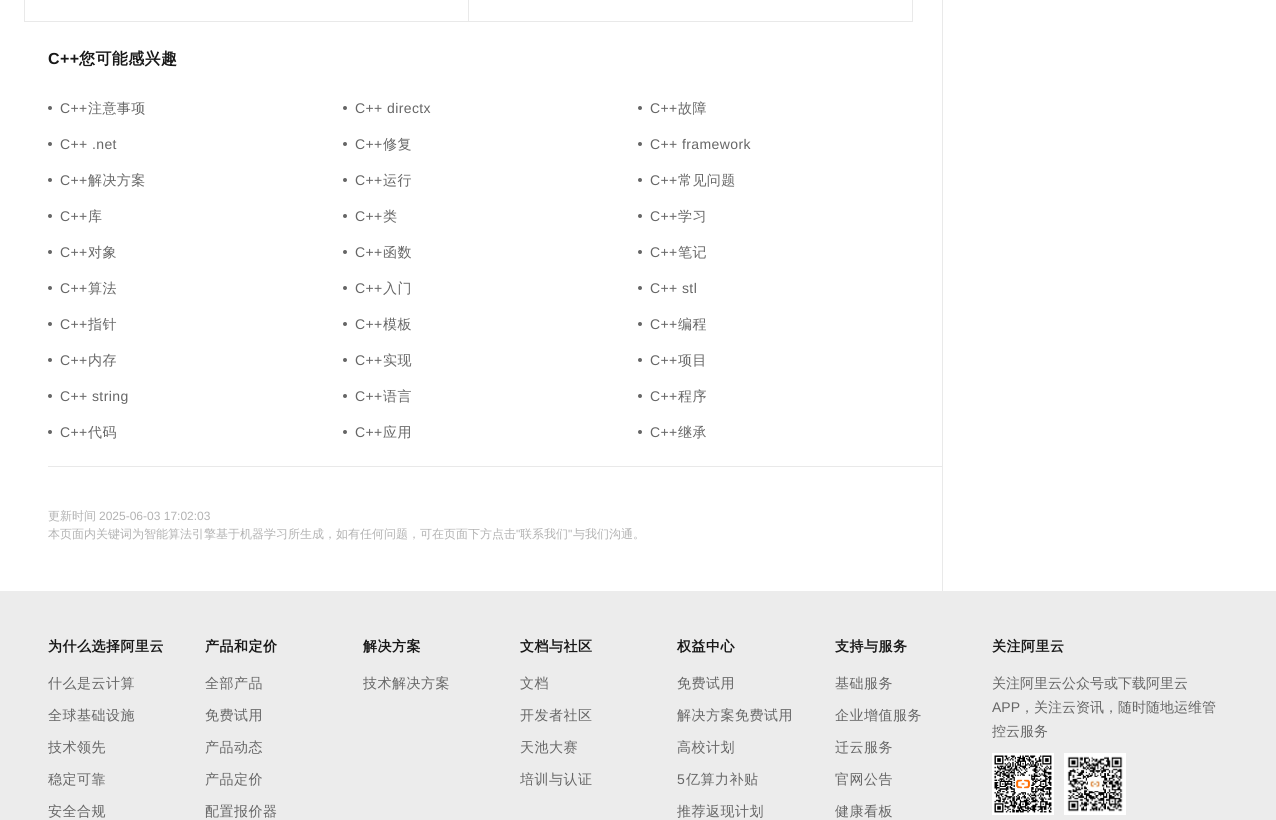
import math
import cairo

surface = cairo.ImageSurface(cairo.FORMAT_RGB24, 1276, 820)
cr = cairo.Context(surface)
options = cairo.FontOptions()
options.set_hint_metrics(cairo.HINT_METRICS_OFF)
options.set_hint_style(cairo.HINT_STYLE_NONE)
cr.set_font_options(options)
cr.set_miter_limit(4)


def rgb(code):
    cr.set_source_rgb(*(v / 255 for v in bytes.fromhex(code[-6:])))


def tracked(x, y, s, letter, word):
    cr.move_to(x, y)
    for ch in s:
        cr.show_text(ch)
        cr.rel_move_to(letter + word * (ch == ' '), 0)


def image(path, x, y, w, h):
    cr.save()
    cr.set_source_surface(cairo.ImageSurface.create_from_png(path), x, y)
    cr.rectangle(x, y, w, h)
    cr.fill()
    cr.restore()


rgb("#ffffff")
cr.paint()
rgb("#e9e9e9")
cr.rectangle(942, 0, 1, 591)
cr.fill()
cr.rectangle(24.5, -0.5, 444, 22)
cr.set_line_width(1)
cr.stroke()
cr.rectangle(912, 0, 1, 22)
cr.fill()
cr.rectangle(468, 21, 445, 1)
cr.fill()
rgb("#666666")
cr.arc(50, 108, 2, 0, 2 * math.pi)
cr.fill()
cr.arc(345, 108, 2, 0, 2 * math.pi)
cr.fill()
cr.arc(640, 108, 2, 0, 2 * math.pi)
cr.fill()
cr.arc(50, 144, 2, 0, 2 * math.pi)
cr.fill()
cr.arc(345, 144, 2, 0, 2 * math.pi)
cr.fill()
cr.arc(640, 144, 2, 0, 2 * math.pi)
cr.fill()
cr.arc(50, 180, 2, 0, 2 * math.pi)
cr.fill()
cr.arc(345, 180, 2, 0, 2 * math.pi)
cr.fill()
cr.arc(640, 180, 2, 0, 2 * math.pi)
cr.fill()
cr.arc(50, 216, 2, 0, 2 * math.pi)
cr.fill()
cr.arc(345, 216, 2, 0, 2 * math.pi)
cr.fill()
cr.arc(640, 216, 2, 0, 2 * math.pi)
cr.fill()
cr.arc(50, 252, 2, 0, 2 * math.pi)
cr.fill()
cr.arc(345, 252, 2, 0, 2 * math.pi)
cr.fill()
cr.arc(640, 252, 2, 0, 2 * math.pi)
cr.fill()
cr.arc(50, 288, 2, 0, 2 * math.pi)
cr.fill()
cr.arc(345, 288, 2, 0, 2 * math.pi)
cr.fill()
cr.arc(640, 288, 2, 0, 2 * math.pi)
cr.fill()
cr.arc(50, 324, 2, 0, 2 * math.pi)
cr.fill()
cr.arc(345, 324, 2, 0, 2 * math.pi)
cr.fill()
cr.arc(640, 324, 2, 0, 2 * math.pi)
cr.fill()
cr.arc(50, 360, 2, 0, 2 * math.pi)
cr.fill()
cr.arc(345, 360, 2, 0, 2 * math.pi)
cr.fill()
cr.arc(640, 360, 2, 0, 2 * math.pi)
cr.fill()
cr.arc(50, 396, 2, 0, 2 * math.pi)
cr.fill()
cr.arc(345, 396, 2, 0, 2 * math.pi)
cr.fill()
cr.arc(640, 396, 2, 0, 2 * math.pi)
cr.fill()
cr.arc(50, 432, 2, 0, 2 * math.pi)
cr.fill()
cr.arc(345, 432, 2, 0, 2 * math.pi)
cr.fill()
cr.arc(640, 432, 2, 0, 2 * math.pi)
cr.fill()
rgb("#e9e9e9")
cr.rectangle(48, 466, 894, 1)
cr.fill()
rgb("#ececec")
cr.rectangle(0, 591, 1276, 229)
cr.fill()
image("img/1.png", 992, 753, 62, 62)
image("img/2.png", 1064, 753, 62, 62)
cr.select_font_face("Liberation Sans", cairo.FONT_SLANT_NORMAL, cairo.FONT_WEIGHT_BOLD)
cr.set_font_size(16)
rgb("#181818")
tracked(48, 64, "C++", 0.4, 0)
cr.select_font_face("WenQuanYi Zen Hei", cairo.FONT_SLANT_NORMAL, cairo.FONT_WEIGHT_BOLD)
tracked(79, 64, "您可能感兴趣", 0.4, 0)
cr.select_font_face("Liberation Sans")
cr.set_font_size(14)
rgb("#666666")
tracked(60, 113, "C++", 0.4, 0)
cr.select_font_face("WenQuanYi Zen Hei Medium")
tracked(88, 113, "注意事项", 0.4, 0)
cr.select_font_face("Liberation Sans")
tracked(355, 113, "C++ directx", 0.4, 0)
tracked(650, 113, "C++", 0.4, 0)
cr.select_font_face("WenQuanYi Zen Hei Medium")
tracked(678, 113, "故障", 0.4, 0)
cr.select_font_face("Liberation Sans")
tracked(60, 149, "C++ .net", 0.4, 0)
tracked(355, 149, "C++", 0.4, 0)
cr.select_font_face("WenQuanYi Zen Hei Medium")
tracked(383, 149, "修复", 0.4, 0)
cr.select_font_face("Liberation Sans")
tracked(650, 149, "C++ framework", 0.4, 0)
tracked(60, 185, "C++", 0.4, 0)
cr.select_font_face("WenQuanYi Zen Hei Medium")
tracked(88, 185, "解决方案", 0.4, 0)
cr.select_font_face("Liberation Sans")
tracked(355, 185, "C++", 0.4, 0)
cr.select_font_face("WenQuanYi Zen Hei Medium")
tracked(383, 185, "运行", 0.4, 0)
cr.select_font_face("Liberation Sans")
tracked(650, 185, "C++", 0.4, 0)
cr.select_font_face("WenQuanYi Zen Hei Medium")
tracked(678, 185, "常见问题", 0.4, 0)
cr.select_font_face("Liberation Sans")
tracked(60, 221, "C++", 0.4, 0)
cr.select_font_face("WenQuanYi Zen Hei Medium")
tracked(88, 221, "库", 0.4, 0)
cr.select_font_face("Liberation Sans")
tracked(355, 221, "C++", 0.4, 0)
cr.select_font_face("WenQuanYi Zen Hei Medium")
tracked(383, 221, "类", 0.4, 0)
cr.select_font_face("Liberation Sans")
tracked(650, 221, "C++", 0.4, 0)
cr.select_font_face("WenQuanYi Zen Hei Medium")
tracked(678, 221, "学习", 0.4, 0)
cr.select_font_face("Liberation Sans")
tracked(60, 257, "C++", 0.4, 0)
cr.select_font_face("WenQuanYi Zen Hei Medium")
tracked(88, 257, "对象", 0.4, 0)
cr.select_font_face("Liberation Sans")
tracked(355, 257, "C++", 0.4, 0)
cr.select_font_face("WenQuanYi Zen Hei Medium")
tracked(383, 257, "函数", 0.4, 0)
cr.select_font_face("Liberation Sans")
tracked(650, 257, "C++", 0.4, 0)
cr.select_font_face("WenQuanYi Zen Hei Medium")
tracked(678, 257, "笔记", 0.4, 0)
cr.select_font_face("Liberation Sans")
tracked(60, 293, "C++", 0.4, 0)
cr.select_font_face("WenQuanYi Zen Hei Medium")
tracked(88, 293, "算法", 0.4, 0)
cr.select_font_face("Liberation Sans")
tracked(355, 293, "C++", 0.4, 0)
cr.select_font_face("WenQuanYi Zen Hei Medium")
tracked(383, 293, "入门", 0.4, 0)
cr.select_font_face("Liberation Sans")
tracked(650, 293, "C++ stl", 0.4, 0)
tracked(60, 329, "C++", 0.4, 0)
cr.select_font_face("WenQuanYi Zen Hei Medium")
tracked(88, 329, "指针", 0.4, 0)
cr.select_font_face("Liberation Sans")
tracked(355, 329, "C++", 0.4, 0)
cr.select_font_face("WenQuanYi Zen Hei Medium")
tracked(383, 329, "模板", 0.4, 0)
cr.select_font_face("Liberation Sans")
tracked(650, 329, "C++", 0.4, 0)
cr.select_font_face("WenQuanYi Zen Hei Medium")
tracked(678, 329, "编程", 0.4, 0)
cr.select_font_face("Liberation Sans")
tracked(60, 365, "C++", 0.4, 0)
cr.select_font_face("WenQuanYi Zen Hei Medium")
tracked(88, 365, "内存", 0.4, 0)
cr.select_font_face("Liberation Sans")
tracked(355, 365, "C++", 0.4, 0)
cr.select_font_face("WenQuanYi Zen Hei Medium")
tracked(383, 365, "实现", 0.4, 0)
cr.select_font_face("Liberation Sans")
tracked(650, 365, "C++", 0.4, 0)
cr.select_font_face("WenQuanYi Zen Hei Medium")
tracked(678, 365, "项目", 0.4, 0)
cr.select_font_face("Liberation Sans")
tracked(60, 401, "C++ string", 0.4, 0)
tracked(355, 401, "C++", 0.4, 0)
cr.select_font_face("WenQuanYi Zen Hei Medium")
tracked(383, 401, "语言", 0.4, 0)
cr.select_font_face("Liberation Sans")
tracked(650, 401, "C++", 0.4, 0)
cr.select_font_face("WenQuanYi Zen Hei Medium")
tracked(678, 401, "程序", 0.4, 0)
cr.select_font_face("Liberation Sans")
tracked(60, 437, "C++", 0.4, 0)
cr.select_font_face("WenQuanYi Zen Hei Medium")
tracked(88, 437, "代码", 0.4, 0)
cr.select_font_face("Liberation Sans")
tracked(355, 437, "C++", 0.4, 0)
cr.select_font_face("WenQuanYi Zen Hei Medium")
tracked(383, 437, "应用", 0.4, 0)
cr.select_font_face("Liberation Sans")
tracked(650, 437, "C++", 0.4, 0)
cr.select_font_face("WenQuanYi Zen Hei Medium")
tracked(678, 437, "继承", 0.4, 0)
cr.set_font_size(12)
rgb("#b2b2b2")
cr.move_to(48, 520)
cr.show_text("更新时间")
cr.select_font_face("Liberation Sans")
cr.move_to(99, 520)
cr.show_text("2025-06-03 17:02:03")
cr.select_font_face("WenQuanYi Zen Hei Medium")
cr.move_to(48, 538)
cr.show_text("本页面内关键词为智能算法引擎基于机器学习所生成，如有任何问题，可在页面下方点击")
cr.select_font_face("Liberation Sans")
cr.move_to(516, 538)
cr.show_text("\"")
cr.select_font_face("WenQuanYi Zen Hei Medium")
cr.move_to(520, 538)
cr.show_text("联系我们")
cr.select_font_face("Liberation Sans")
cr.move_to(568, 538)
cr.show_text("\"")
cr.select_font_face("WenQuanYi Zen Hei Medium")
cr.move_to(573, 538)
cr.show_text("与我们沟通。")
cr.select_font_face("WenQuanYi Zen Hei", cairo.FONT_SLANT_NORMAL, cairo.FONT_WEIGHT_BOLD)
cr.set_font_size(14)
rgb("#181818")
tracked(48, 651, "为什么选择阿里云", 0.5, 0)
cr.select_font_face("WenQuanYi Zen Hei Medium")
rgb("#666666")
for x, y, s in [
    (48, 688, "什么是云计算"),
    (48, 720, "全球基础设施"),
    (48, 752, "技术领先"),
    (48, 784, "稳定可靠"),
    (48, 816, "安全合规"),
]:
    tracked(x, y, s, 0.5, 0)
cr.select_font_face("WenQuanYi Zen Hei", cairo.FONT_SLANT_NORMAL, cairo.FONT_WEIGHT_BOLD)
rgb("#181818")
tracked(205, 651, "产品和定价", 0.5, 0)
cr.select_font_face("WenQuanYi Zen Hei Medium")
rgb("#666666")
for x, y, s in [
    (205, 688, "全部产品"),
    (205, 720, "免费试用"),
    (205, 752, "产品动态"),
    (205, 784, "产品定价"),
    (205, 816, "配置报价器"),
]:
    tracked(x, y, s, 0.5, 0)
cr.select_font_face("WenQuanYi Zen Hei", cairo.FONT_SLANT_NORMAL, cairo.FONT_WEIGHT_BOLD)
rgb("#181818")
tracked(363, 651, "解决方案", 0.5, 0)
cr.select_font_face("WenQuanYi Zen Hei Medium")
rgb("#666666")
tracked(363, 688, "技术解决方案", 0.5, 0)
cr.select_font_face("WenQuanYi Zen Hei", cairo.FONT_SLANT_NORMAL, cairo.FONT_WEIGHT_BOLD)
rgb("#181818")
tracked(520, 651, "文档与社区", 0.5, 0)
cr.select_font_face("WenQuanYi Zen Hei Medium")
rgb("#666666")
for x, y, s in [
    (520, 688, "文档"),
    (520, 720, "开发者社区"),
    (520, 752, "天池大赛"),
    (520, 784, "培训与认证"),
]:
    tracked(x, y, s, 0.5, 0)
cr.select_font_face("WenQuanYi Zen Hei", cairo.FONT_SLANT_NORMAL, cairo.FONT_WEIGHT_BOLD)
rgb("#181818")
tracked(677, 651, "权益中心", 0.5, 0)
cr.select_font_face("WenQuanYi Zen Hei Medium")
rgb("#666666")
for x, y, s in [
    (677, 688, "免费试用"),
    (677, 720, "解决方案免费试用"),
    (677, 752, "高校计划"),
]:
    tracked(x, y, s, 0.5, 0)
cr.select_font_face("Liberation Sans")
tracked(677, 784, "5", 0.5, 0)
cr.select_font_face("WenQuanYi Zen Hei Medium")
tracked(686, 784, "亿算力补贴", 0.5, 0)
tracked(677, 816, "推荐返现计划", 0.5, 0)
cr.select_font_face("WenQuanYi Zen Hei", cairo.FONT_SLANT_NORMAL, cairo.FONT_WEIGHT_BOLD)
rgb("#181818")
tracked(835, 651, "支持与服务", 0.5, 0)
cr.select_font_face("WenQuanYi Zen Hei Medium")
rgb("#666666")
for x, y, s in [
    (835, 688, "基础服务"),
    (835, 720, "企业增值服务"),
    (835, 752, "迁云服务"),
    (835, 784, "官网公告"),
    (835, 816, "健康看板"),
]:
    tracked(x, y, s, 0.5, 0)
cr.select_font_face("WenQuanYi Zen Hei", cairo.FONT_SLANT_NORMAL, cairo.FONT_WEIGHT_BOLD)
rgb("#181818")
tracked(992, 651, "关注阿里云", 0.5, 0)
cr.select_font_face("WenQuanYi Zen Hei Medium")
rgb("#666666")
cr.move_to(992, 688)
cr.show_text("关注阿里云公众号或下载阿里云")
cr.select_font_face("Liberation Sans")
cr.move_to(992, 712)
cr.show_text("APP")
cr.select_font_face("WenQuanYi Zen Hei Medium")
cr.move_to(1020, 712)
cr.show_text("，关注云资讯，随时随地运维管")
cr.move_to(992, 736)
cr.show_text("控云服务")
surface.write_to_png("page.png")
